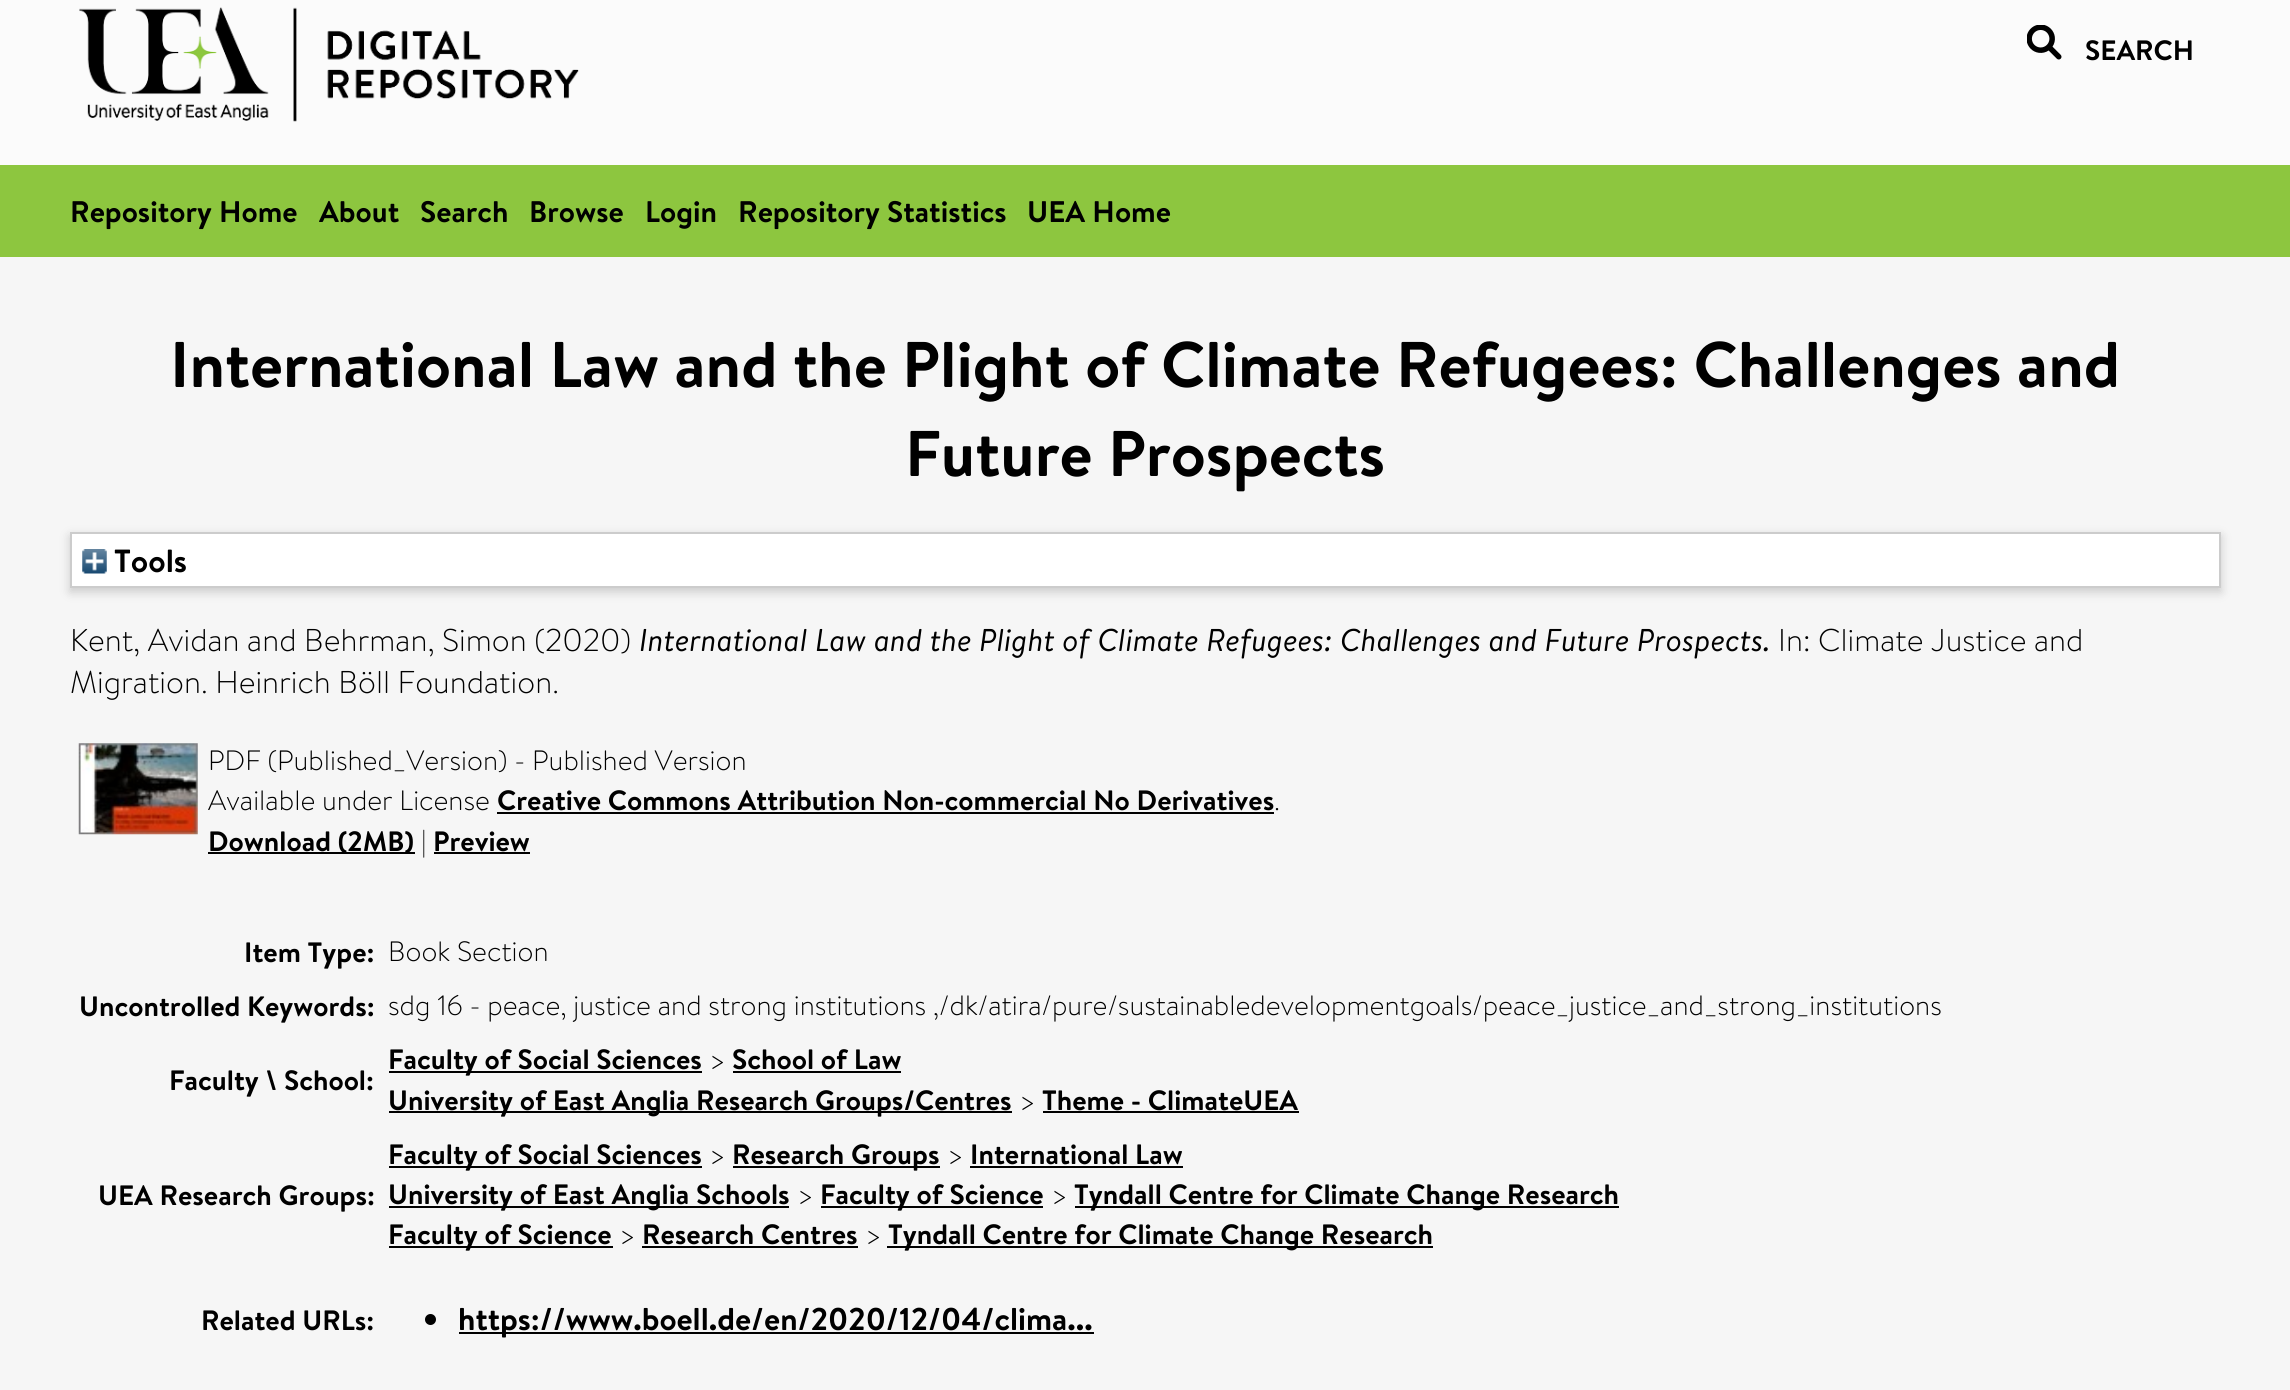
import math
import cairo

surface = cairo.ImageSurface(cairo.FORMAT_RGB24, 2290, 1390)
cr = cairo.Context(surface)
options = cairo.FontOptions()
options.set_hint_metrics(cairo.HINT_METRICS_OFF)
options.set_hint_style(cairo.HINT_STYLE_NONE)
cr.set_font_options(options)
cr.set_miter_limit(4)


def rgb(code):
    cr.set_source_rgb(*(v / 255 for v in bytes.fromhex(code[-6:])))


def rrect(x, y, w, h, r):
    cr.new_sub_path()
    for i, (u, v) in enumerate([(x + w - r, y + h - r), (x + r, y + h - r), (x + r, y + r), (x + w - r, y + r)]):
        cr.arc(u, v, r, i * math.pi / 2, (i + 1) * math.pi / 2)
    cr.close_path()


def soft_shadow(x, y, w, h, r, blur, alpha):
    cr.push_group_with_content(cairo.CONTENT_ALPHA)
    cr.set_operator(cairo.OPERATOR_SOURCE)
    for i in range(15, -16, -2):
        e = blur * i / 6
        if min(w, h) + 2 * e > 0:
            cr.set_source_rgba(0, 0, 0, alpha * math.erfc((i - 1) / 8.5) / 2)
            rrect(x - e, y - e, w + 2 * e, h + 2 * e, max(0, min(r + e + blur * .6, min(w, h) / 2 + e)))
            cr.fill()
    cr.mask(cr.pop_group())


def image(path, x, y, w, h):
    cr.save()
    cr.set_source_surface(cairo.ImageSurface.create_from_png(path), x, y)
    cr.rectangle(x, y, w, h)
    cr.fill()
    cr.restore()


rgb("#f6f6f6")
cr.paint()
rgb("#fbfbfb")
cr.rectangle(0, 0, 2290, 165)
cr.fill()
image("img/1.png", 79, 7, 500, 115)
image("img/2.png", 2027, 25, 35, 35)
rgb("#8dc63f")
cr.rectangle(0, 165, 2290, 92)
cr.fill()
rgb("#646464")
soft_shadow(70, 536, 2151, 56, 0, 5, 0.3)
rgb("#ffffff")
cr.rectangle(71, 533, 2149, 54)
cr.fill_preserve()
rgb("#cccccc")
cr.stroke()
image("img/3.png", 82, 549, 25, 25)
image("img/4.png", 78, 743, 120, 92)
for x, y, w, h, color in [
    (497, 812, 777, 2, "#000000"),
    (208, 852, 207, 2, "#000000"),
    (434, 852, 96, 2, "#000000"),
    (389, 1071, 313, 2, "#000000"),
    (733, 1071, 168, 2, "#000000"),
    (389, 1111, 623, 2, "#000000"),
    (1043, 1111, 256, 2, "#000000"),
    (389, 1166, 313, 2, "#000000"),
    (733, 1166, 207, 2, "#000000"),
    (970, 1166, 213, 2, "#000000"),
    (389, 1206, 400, 2, "#000000"),
    (821, 1206, 222, 2, "#000000"),
    (1075, 1206, 544, 2, "#000000"),
    (389, 1246, 224, 2, "#000000"),
    (642, 1246, 216, 2, "#000000"),
    (887, 1246, 546, 2, "#000000"),
]:
    rgb(color)
    cr.rectangle(x, y, w, h)
    cr.fill()
cr.arc(430.5, 1319.5, 5.5, 0, 2 * math.pi)
cr.fill()
cr.rectangle(459, 1332, 635, 2)
cr.fill()
cr.select_font_face("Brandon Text", cairo.FONT_SLANT_NORMAL, cairo.FONT_WEIGHT_BOLD)
cr.set_font_size(28)
cr.move_to(2085, 60)
cr.show_text("SEARCH")
cr.set_font_size(29.75)
for x, y, s in [
    (70, 222, "Repository Home"),
    (319, 222, "About"),
    (420, 222, "Search"),
    (529, 222, "Browse"),
    (645, 222, "Login"),
    (738, 222, "Repository Statistics"),
    (1027, 222, "UEA Home"),
]:
    cr.move_to(x, y)
    cr.show_text(s)
cr.set_font_size(64.4)
cr.move_to(170, 387)
cr.show_text("International Law and the Plight of Climate Refugees: Challenges and")
cr.move_to(905, 476)
cr.show_text("Future Prospects")
cr.set_font_size(32)
cr.move_to(114, 572)
cr.show_text("Tools")
cr.select_font_face("Brandon Text Light")
cr.set_font_size(31.5)
cr.move_to(70, 651)
cr.show_text("Kent, Avidan and Behrman, Simon (2020)")
cr.select_font_face("Brandon Text", cairo.FONT_SLANT_ITALIC)
cr.move_to(639, 651)
cr.show_text("International Law and the Plight of Climate Refugees: Challenges and Future Prospects.")
cr.select_font_face("Brandon Text Light")
cr.move_to(1778, 651)
cr.show_text("In: Climate Justice and")
cr.move_to(70, 693)
cr.show_text("Migration. Heinrich Böll Foundation.")
cr.set_font_size(28)
cr.move_to(208, 770)
cr.show_text("PDF (Published_Version) - Published Version")
cr.move_to(208, 810)
cr.show_text("Available under License")
cr.select_font_face("Brandon Text", cairo.FONT_SLANT_NORMAL, cairo.FONT_WEIGHT_BOLD)
cr.move_to(497, 810)
cr.show_text("Creative Commons Attribution Non-commercial No Derivatives")
cr.select_font_face("Brandon Text Light")
cr.move_to(1274, 810)
cr.show_text(".")
cr.select_font_face("Brandon Text", cairo.FONT_SLANT_NORMAL, cairo.FONT_WEIGHT_BOLD)
cr.move_to(208, 851)
cr.show_text("Download (2MB)")
cr.select_font_face("Brandon Text Light")
cr.move_to(421, 851)
cr.show_text("|")
cr.select_font_face("Brandon Text", cairo.FONT_SLANT_NORMAL, cairo.FONT_WEIGHT_BOLD)
cr.move_to(433, 851)
cr.show_text("Preview")
cr.move_to(244, 962)
cr.show_text("Item Type:")
cr.select_font_face("Brandon Text Light")
cr.move_to(388, 961)
cr.show_text("Book Section")
cr.select_font_face("Brandon Text", cairo.FONT_SLANT_NORMAL, cairo.FONT_WEIGHT_BOLD)
cr.move_to(79, 1016)
cr.show_text("Uncontrolled Keywords:")
cr.select_font_face("Brandon Text Light")
cr.move_to(388, 1015)
cr.show_text("sdg 16 - peace, justice and strong institutions ,/dk/atira/pure/sustainabledevelopmentgoals/peace_justice_and_strong_institutions")
cr.select_font_face("Brandon Text", cairo.FONT_SLANT_NORMAL, cairo.FONT_WEIGHT_BOLD)
cr.move_to(169, 1090)
cr.show_text("Faculty \\ School:")
cr.move_to(388, 1069)
cr.show_text("Faculty of Social Sciences")
cr.select_font_face("Brandon Text Light")
cr.move_to(709, 1069)
cr.show_text(">")
cr.select_font_face("Brandon Text", cairo.FONT_SLANT_NORMAL, cairo.FONT_WEIGHT_BOLD)
cr.move_to(732, 1069)
cr.show_text("School of Law")
cr.move_to(388, 1110)
cr.show_text("University of East Anglia Research Groups/Centres")
cr.select_font_face("Brandon Text Light")
cr.move_to(1019, 1110)
cr.show_text(">")
cr.select_font_face("Brandon Text", cairo.FONT_SLANT_NORMAL, cairo.FONT_WEIGHT_BOLD)
for x, y, s in [
    (1042, 1110, "Theme - ClimateUEA"),
    (98, 1205, "UEA Research Groups:"),
    (388, 1164, "Faculty of Social Sciences"),
]:
    cr.move_to(x, y)
    cr.show_text(s)
cr.select_font_face("Brandon Text Light")
cr.move_to(709, 1164)
cr.show_text(">")
cr.select_font_face("Brandon Text", cairo.FONT_SLANT_NORMAL, cairo.FONT_WEIGHT_BOLD)
cr.move_to(732, 1164)
cr.show_text("Research Groups")
cr.select_font_face("Brandon Text Light")
cr.move_to(947, 1164)
cr.show_text(">")
cr.select_font_face("Brandon Text", cairo.FONT_SLANT_NORMAL, cairo.FONT_WEIGHT_BOLD)
cr.move_to(970, 1164)
cr.show_text("International Law")
cr.move_to(388, 1204)
cr.show_text("University of East Anglia Schools")
cr.select_font_face("Brandon Text Light")
cr.move_to(797, 1204)
cr.show_text(">")
cr.select_font_face("Brandon Text", cairo.FONT_SLANT_NORMAL, cairo.FONT_WEIGHT_BOLD)
cr.move_to(820, 1204)
cr.show_text("Faculty of Science")
cr.select_font_face("Brandon Text Light")
cr.move_to(1051, 1204)
cr.show_text(">")
cr.select_font_face("Brandon Text", cairo.FONT_SLANT_NORMAL, cairo.FONT_WEIGHT_BOLD)
cr.move_to(1074, 1204)
cr.show_text("Tyndall Centre for Climate Change Research")
cr.move_to(388, 1244)
cr.show_text("Faculty of Science")
cr.select_font_face("Brandon Text Light")
cr.move_to(619, 1244)
cr.show_text(">")
cr.select_font_face("Brandon Text", cairo.FONT_SLANT_NORMAL, cairo.FONT_WEIGHT_BOLD)
cr.move_to(642, 1244)
cr.show_text("Research Centres")
cr.select_font_face("Brandon Text Light")
cr.move_to(865, 1244)
cr.show_text(">")
cr.select_font_face("Brandon Text", cairo.FONT_SLANT_NORMAL, cairo.FONT_WEIGHT_BOLD)
cr.move_to(888, 1244)
cr.show_text("Tyndall Centre for Climate Change Research")
cr.move_to(201, 1330)
cr.show_text("Related URLs:")
cr.set_font_size(31.5)
cr.move_to(458, 1330)
cr.show_text("https://www.boell.de/en/2020/12/04/clima...")
surface.write_to_png("page.png")
